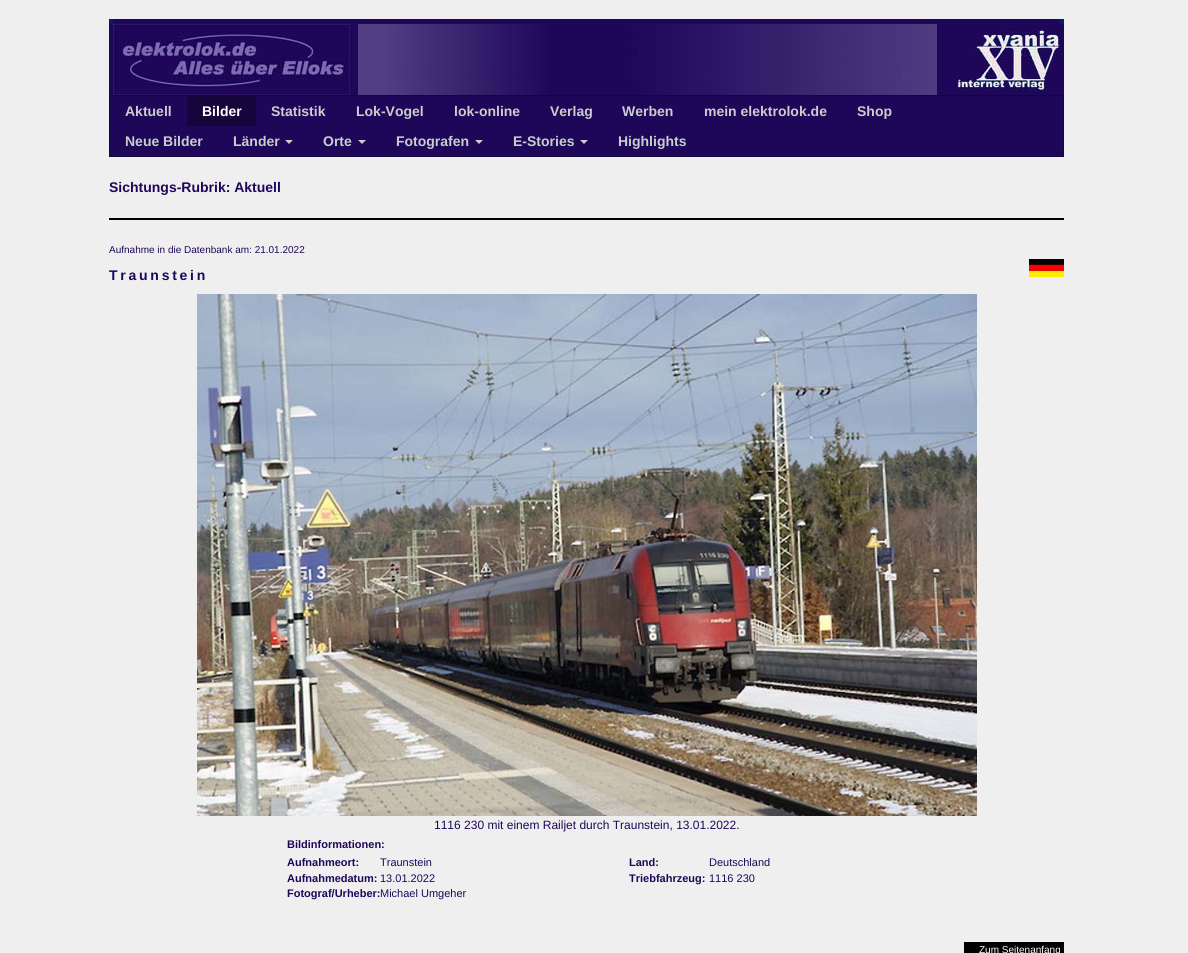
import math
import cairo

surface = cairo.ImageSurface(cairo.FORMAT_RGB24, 1188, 953)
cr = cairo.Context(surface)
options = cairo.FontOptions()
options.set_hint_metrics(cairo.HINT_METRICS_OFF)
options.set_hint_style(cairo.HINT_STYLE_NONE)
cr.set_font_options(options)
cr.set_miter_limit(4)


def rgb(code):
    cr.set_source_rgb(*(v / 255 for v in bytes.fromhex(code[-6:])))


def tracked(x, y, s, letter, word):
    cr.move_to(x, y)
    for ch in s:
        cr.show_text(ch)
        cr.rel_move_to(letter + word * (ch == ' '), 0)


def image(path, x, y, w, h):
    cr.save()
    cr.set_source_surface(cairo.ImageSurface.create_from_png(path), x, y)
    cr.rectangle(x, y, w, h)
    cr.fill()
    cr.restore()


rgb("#efefef")
cr.paint()
for x, y, w, h, color in [
    (109, 19, 4, 5, "#011f68"),
    (113, 19, 947, 5, "#1e0759"),
    (1060, 19, 4, 5, "#011f68"),
    (109, 24, 4, 71, "#1e0759"),
    (350, 24, 8, 71, "#1e0759"),
]:
    rgb(color)
    cr.rectangle(x, y, w, h)
    cr.fill()
image("img/1.png", 113, 24, 237, 71)
image("img/2.png", 358, 24, 579, 71)
cr.rectangle(937, 24, 127, 71)
cr.fill()
image("img/3.png", 957, 29, 103, 62)
cr.rectangle(109.5, 95.5, 954, 61)
cr.fill_preserve()
rgb("#14053a")
cr.set_line_width(1)
cr.stroke()
cr.rectangle(187, 96, 69, 30)
cr.fill()
rgb("#cccccc")
cr.new_path()
cr.move_to(285, 140)
cr.line_to(293, 140)
cr.line_to(289, 144)
cr.close_path()
cr.fill()
cr.new_path()
cr.move_to(358, 140)
cr.line_to(366, 140)
cr.line_to(362, 144)
cr.close_path()
cr.fill()
cr.new_path()
cr.move_to(475, 140)
cr.line_to(483, 140)
cr.line_to(479, 144)
cr.close_path()
cr.fill()
cr.new_path()
cr.move_to(580, 140)
cr.line_to(588, 140)
cr.line_to(584, 144)
cr.close_path()
cr.fill()
rgb("#000000")
cr.rectangle(109, 218, 955, 2)
cr.fill()
image("img/4.png", 1029, 259, 35, 18)
image("img/5.png", 197, 294, 780, 522)
cr.rectangle(964, 942, 100, 11)
cr.fill()
cr.select_font_face("Liberation Sans", cairo.FONT_SLANT_NORMAL, cairo.FONT_WEIGHT_BOLD)
cr.set_font_size(14)
rgb("#cccccc")
cr.move_to(125, 116)
cr.show_text("Aktuell")
rgb("#ffffff")
cr.move_to(202, 116)
cr.show_text("Bilder")
rgb("#cccccc")
for x, y, s in [
    (271, 116, "Statistik"),
    (356, 116, "Lok-Vogel"),
    (454, 116, "lok-online"),
    (550, 116, "Verlag"),
    (622, 116, "Werben"),
    (704, 116, "mein elektrolok.de"),
    (857, 116, "Shop"),
    (125, 146, "Neue Bilder"),
    (233, 146, "Länder"),
    (323, 146, "Orte"),
    (396, 146, "Fotografen"),
    (513, 146, "E-Stories"),
    (618, 146, "Highlights"),
]:
    cr.move_to(x, y)
    cr.show_text(s)
rgb("#1e0759")
cr.move_to(109, 192)
cr.show_text("Sichtungs-Rubrik: Aktuell")
cr.select_font_face("Liberation Sans")
cr.set_font_size(10)
cr.move_to(109, 253)
cr.show_text("Aufnahme in die Datenbank am: 21.01.2022")
cr.select_font_face("Liberation Sans", cairo.FONT_SLANT_NORMAL, cairo.FONT_WEIGHT_BOLD)
cr.set_font_size(14)
tracked(109, 280, "Traunstein", 2.75, 0)
cr.select_font_face("Liberation Sans")
cr.set_font_size(12)
cr.move_to(434, 829)
cr.show_text("1116 230 mit einem Railjet durch Traunstein, 13.01.2022.")
cr.select_font_face("Liberation Sans", cairo.FONT_SLANT_NORMAL, cairo.FONT_WEIGHT_BOLD)
cr.set_font_size(11)
cr.move_to(287, 848)
cr.show_text("Bildinformationen:")
cr.move_to(287, 866)
cr.show_text("Aufnahmeort:")
cr.select_font_face("Liberation Sans")
cr.move_to(380, 866)
cr.show_text("Traunstein")
cr.select_font_face("Liberation Sans", cairo.FONT_SLANT_NORMAL, cairo.FONT_WEIGHT_BOLD)
cr.move_to(629, 866)
cr.show_text("Land:")
cr.select_font_face("Liberation Sans")
cr.move_to(709, 866)
cr.show_text("Deutschland")
cr.select_font_face("Liberation Sans", cairo.FONT_SLANT_NORMAL, cairo.FONT_WEIGHT_BOLD)
cr.move_to(287, 882)
cr.show_text("Aufnahmedatum:")
cr.select_font_face("Liberation Sans")
cr.move_to(380, 882)
cr.show_text("13.01.2022")
cr.select_font_face("Liberation Sans", cairo.FONT_SLANT_NORMAL, cairo.FONT_WEIGHT_BOLD)
cr.move_to(629, 882)
cr.show_text("Triebfahrzeug:")
cr.select_font_face("Liberation Sans")
cr.move_to(709, 882)
cr.show_text("1116 230")
cr.select_font_face("Liberation Sans", cairo.FONT_SLANT_NORMAL, cairo.FONT_WEIGHT_BOLD)
cr.move_to(287, 897)
cr.show_text("Fotograf/Urheber:")
cr.select_font_face("Liberation Sans")
cr.move_to(380, 897)
cr.show_text("Michael Umgeher")
cr.set_font_size(10)
rgb("#ffffff")
cr.move_to(979, 953)
cr.show_text("Zum Seitenanfang")
surface.write_to_png("page.png")
